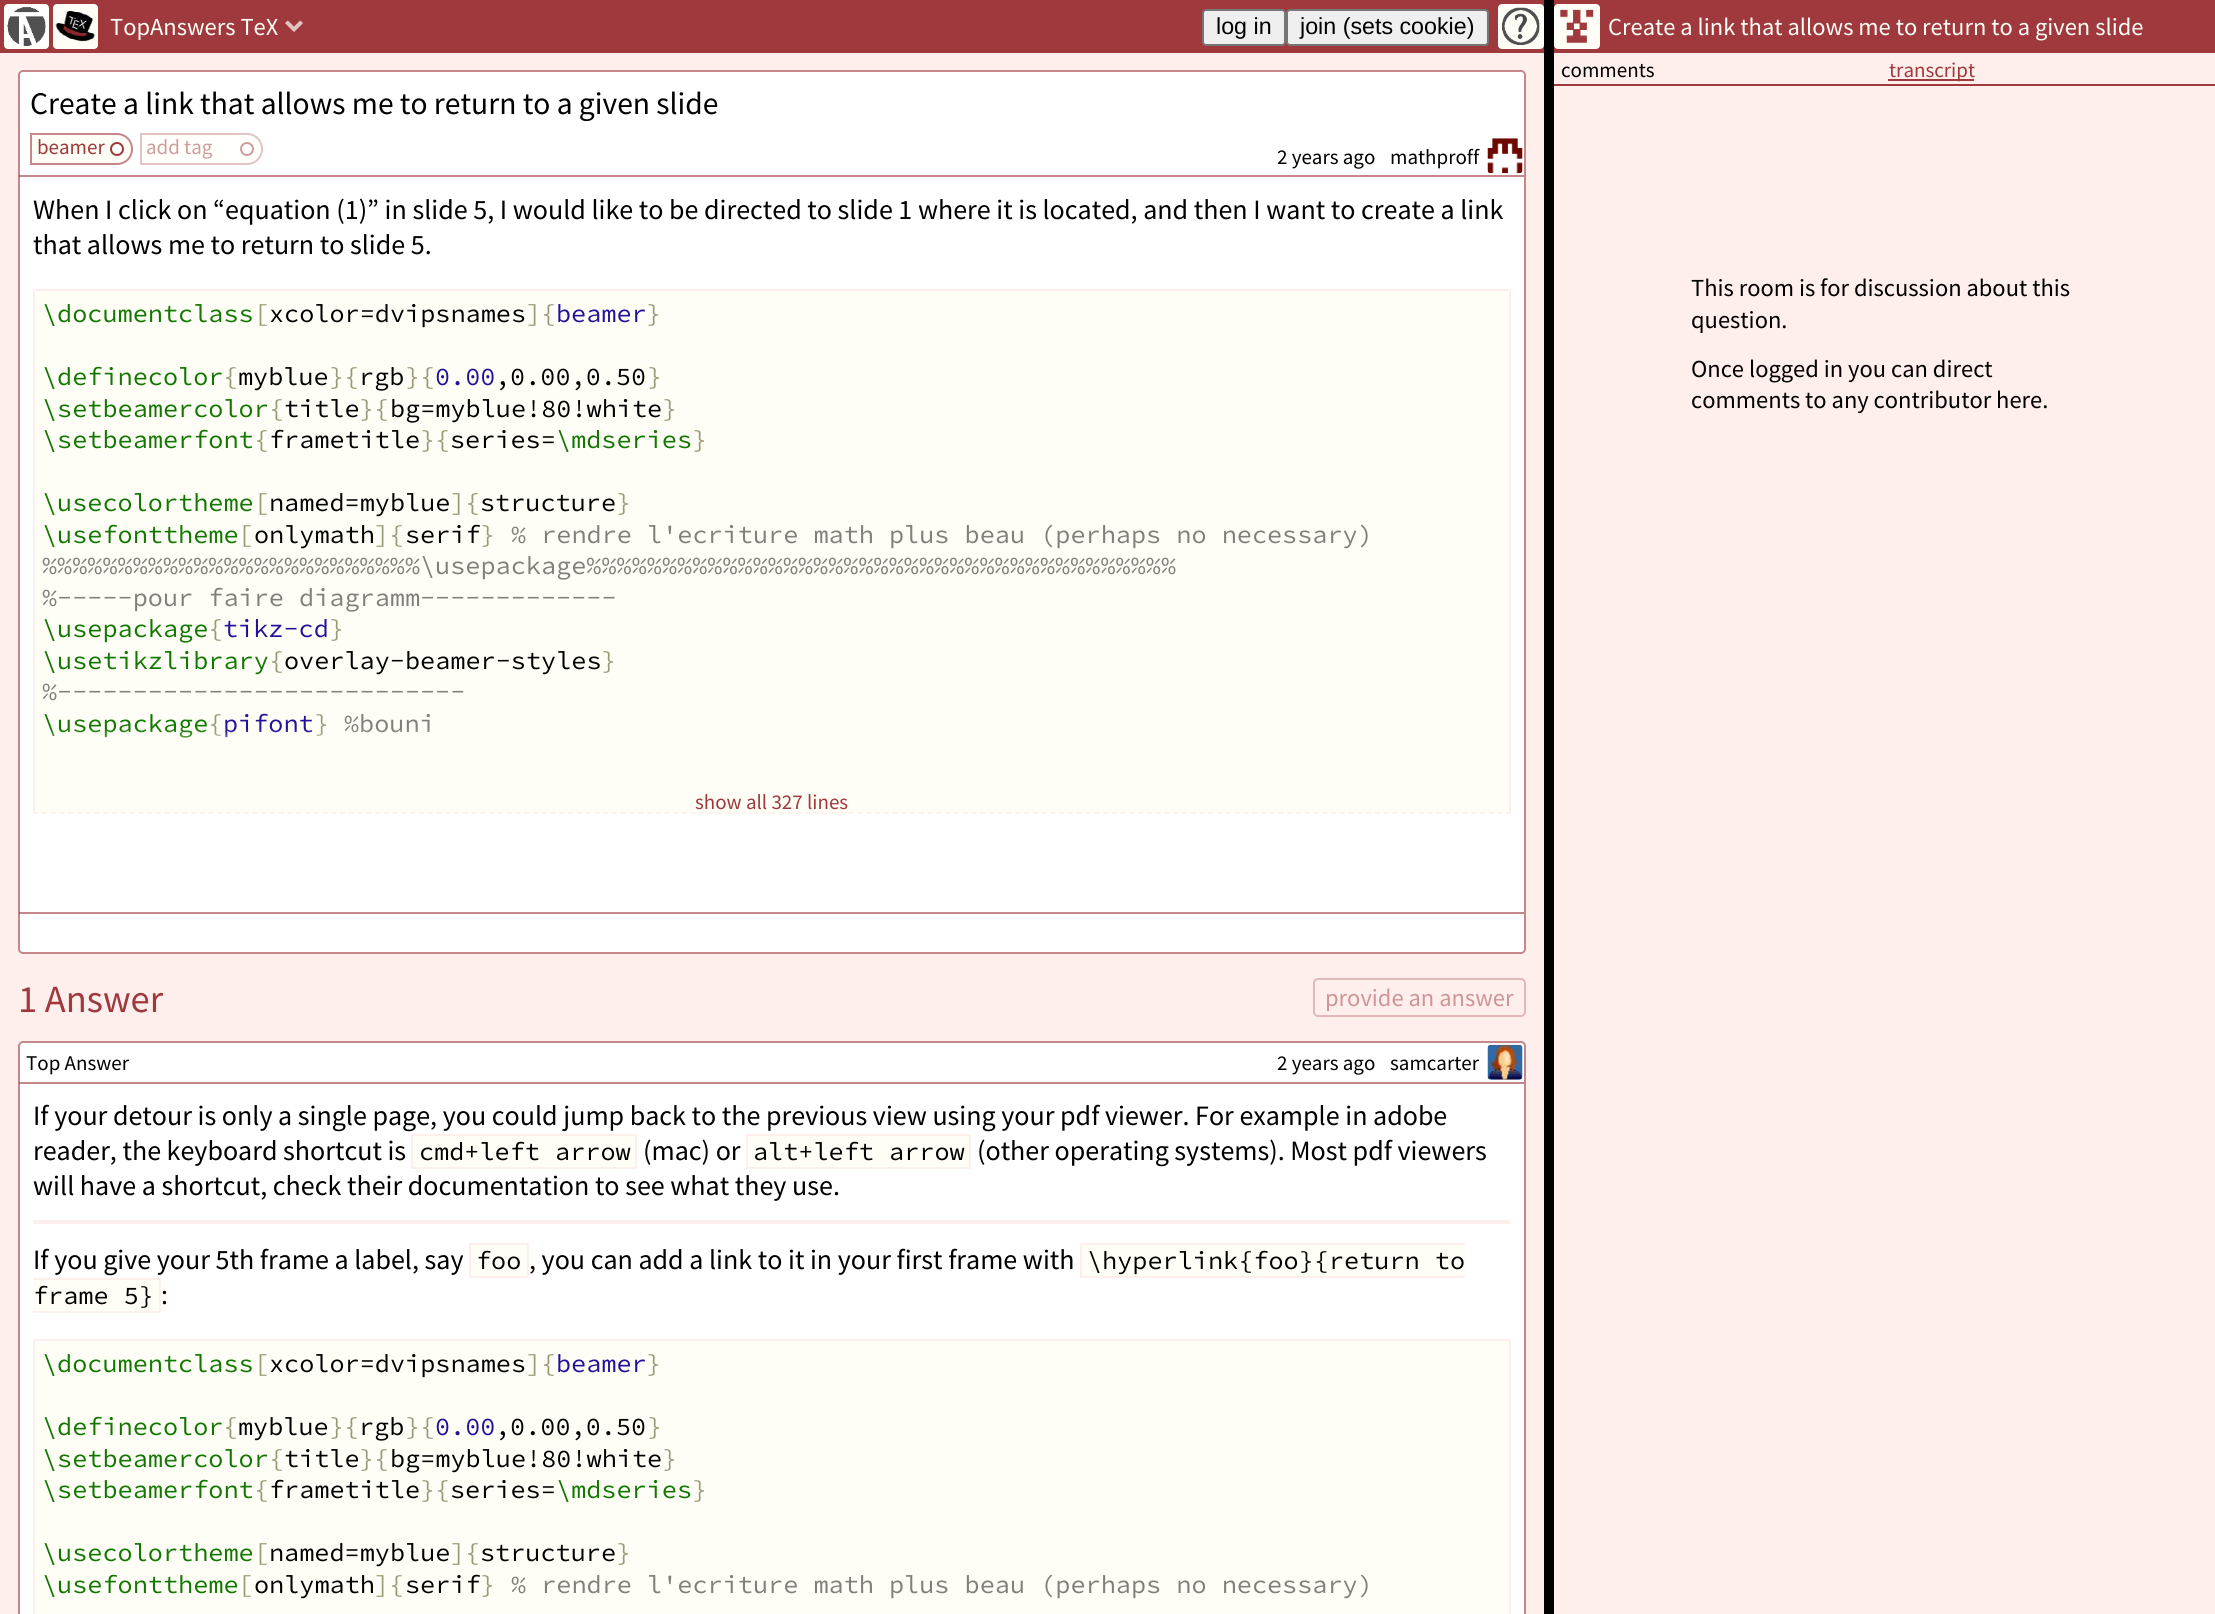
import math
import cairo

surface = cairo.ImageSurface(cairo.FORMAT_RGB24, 2215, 1614)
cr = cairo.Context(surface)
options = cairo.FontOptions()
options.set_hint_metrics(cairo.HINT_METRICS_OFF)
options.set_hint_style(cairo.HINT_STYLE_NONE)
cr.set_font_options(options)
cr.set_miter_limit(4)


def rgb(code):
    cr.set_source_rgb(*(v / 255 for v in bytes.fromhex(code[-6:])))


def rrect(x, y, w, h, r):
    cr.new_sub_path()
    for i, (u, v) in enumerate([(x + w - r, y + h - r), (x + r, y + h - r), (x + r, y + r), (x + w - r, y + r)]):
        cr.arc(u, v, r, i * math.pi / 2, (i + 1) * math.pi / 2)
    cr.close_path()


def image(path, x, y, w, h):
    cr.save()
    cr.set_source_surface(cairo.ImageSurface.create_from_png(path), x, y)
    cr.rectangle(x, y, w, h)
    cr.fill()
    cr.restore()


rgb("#ffefec")
cr.paint()
rgb("#9f393d")
cr.rectangle(0, 0, 1544, 53)
cr.fill()
rgb("#fefef6")
rrect(4, 4, 45, 45, 4)
cr.fill()
image("img/1.png", 5, 5, 42, 42)
rrect(53, 4, 45, 45, 4)
cr.fill()
image("img/2.png", 55, 11, 40, 31)
image("img/3.png", 285, 20, 18, 12)
rgb("#efefef")
rrect(1203, 10, 82, 35, 3)
cr.fill_preserve()
rgb("#767676")
cr.stroke()
rgb("#efefef")
rrect(1287, 10, 201, 35, 3)
cr.fill_preserve()
rgb("#767676")
cr.stroke()
rgb("#fefef6")
rrect(1498, 4, 46, 45, 4)
cr.fill()
image("img/4.png", 1502, 7, 38, 38)
rgb("#ffffff")
rrect(18, 70, 1508, 884, 5)
cr.fill()
rrect(19, 71, 1506, 882, 4)
cr.set_source_rgba(0.624, 0.224, 0.239, 0.6)
cr.stroke()
rgb("#fefef6")
cr.new_path()
cr.move_to(32, 135)
cr.line_to(117, 135)
cr.curve_to(124.5, 135, 131, 141.5, 131, 149)
cr.curve_to(131, 156.5, 124.5, 163, 117, 163)
cr.line_to(32, 163)
cr.close_path()
cr.fill()
cr.new_path()
cr.move_to(31, 134)
cr.line_to(117, 134)
cr.curve_to(125.5, 134, 132, 140.5, 132, 149)
cr.curve_to(132, 157.5, 125.5, 164, 117, 164)
cr.line_to(31, 164)
cr.close_path()
cr.set_source_rgba(0.624, 0.224, 0.239, 0.6)
cr.stroke()
rgb("#ffffff")
cr.arc(117, 149, 6, 0, 2 * math.pi)
cr.fill_preserve()
rgb("#9f393d")
cr.stroke()
rgb("#fffffb")
cr.new_path()
cr.move_to(141, 134)
cr.line_to(247, 134)
cr.curve_to(255.5, 134, 262, 140.5, 262, 149)
cr.curve_to(262, 157.5, 255.5, 164, 247, 164)
cr.line_to(141, 164)
cr.close_path()
cr.fill_preserve()
rgb("#e2c4c5")
cr.stroke()
rgb("#ffffff")
cr.arc(247, 149, 6, 0, 2 * math.pi)
cr.fill_preserve()
rgb("#cf9c9e")
cr.stroke()
image("img/5.png", 1487, 138, 36, 36)
cr.set_source_rgba(0.624, 0.224, 0.239, 0.6)
cr.rectangle(19, 175, 1505, 2)
cr.fill()
cr.rectangle(19, 912, 1505, 2)
cr.fill()
rgb("#fefef6")
cr.rectangle(35, 291, 1474, 523)
cr.fill()
rgb("#ffefec")
cr.rectangle(33, 289, 1477, 2)
cr.rectangle(1509, 289, 2, 525)
cr.fill()
cr.new_path()
cr.move_to(33, 813)
cr.line_to(1510, 813)
cr.set_line_width(1.8)
cr.set_dash([5.25, 3.52])
cr.stroke()
cr.rectangle(33, 289, 2, 525)
cr.fill()
rrect(1314, 979, 211, 37, 4)
rgb("#e2b8b8")
cr.set_line_width(2)
cr.set_dash([])
cr.stroke()
rgb("#ffffff")
cr.new_path()
cr.move_to(23, 1041)
cr.line_to(1521, 1041)
cr.curve_to(1524, 1041, 1526, 1043, 1526, 1046)
cr.line_to(1526, 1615)
cr.line_to(18, 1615)
cr.line_to(18, 1046)
cr.curve_to(18, 1043, 20, 1041, 23, 1041)
cr.close_path()
cr.fill()
rrect(19, 1042, 1506, 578, 4)
cr.set_source_rgba(0.624, 0.224, 0.239, 0.6)
cr.stroke()
image("img/6.png", 1487, 1044, 36, 36)
cr.rectangle(19, 1082, 1505, 2)
cr.fill()
rgb("#fefef6")
cr.rectangle(412, 1135, 224, 33)
cr.fill_preserve()
rgb("#ffefec")
cr.stroke()
rgb("#fefef6")
cr.rectangle(747, 1135, 223, 33)
cr.fill_preserve()
rgb("#ffefec")
cr.stroke()
cr.rectangle(33, 1220, 1477, 4)
cr.fill()
rgb("#fefef6")
cr.rectangle(470, 1244, 58, 33)
cr.fill_preserve()
rgb("#ffefec")
cr.stroke()
for x, y, w, h, color in [
    (1082, 1245, 383, 31, "#fefef6"),
    (1080, 1243, 385, 2, "#ffefec"),
    (1080, 1276, 385, 2, "#ffefec"),
    (1080, 1243, 2, 35, "#ffefec"),
    (33, 1280, 126, 31, "#fefef6"),
    (33, 1278, 128, 2, "#ffefec"),
    (159, 1278, 2, 35, "#ffefec"),
    (33, 1311, 128, 2, "#ffefec"),
    (35, 1341, 1474, 273, "#fefef6"),
    (33, 1339, 1477, 2, "#ffefec"),
    (1509, 1339, 2, 275, "#ffefec"),
    (33, 1339, 2, 275, "#ffefec"),
    (1544, 0, 10, 1614, "#000000"),
    (1554, 0, 661, 53, "#9f393d"),
]:
    rgb(color)
    cr.rectangle(x, y, w, h)
    cr.fill()
rgb("#fefef6")
rrect(1554, 4, 46, 45, 4)
cr.fill()
image("img/7.png", 1560, 9, 34, 34)
rgb("#9f393d")
cr.rectangle(1554, 84, 661, 2)
cr.fill()
cr.rectangle(1888, 79, 86, 2)
cr.fill()
cr.select_font_face("Source Sans Pro")
cr.set_font_size(24.5)
rgb("#fefef6")
cr.move_to(110, 35)
cr.show_text("TopAnswers TeX")
cr.select_font_face("Liberation Sans")
cr.set_font_size(23.25)
rgb("#000000")
cr.move_to(1216, 34)
cr.show_text("log in")
cr.move_to(1300, 34)
cr.show_text("join (sets cookie)")
cr.select_font_face("Source Sans Pro")
cr.set_font_size(31.5)
cr.move_to(30, 114)
cr.show_text("Create a link that allows me to return to a given slide")
cr.set_font_size(21)
rgb("#9f393d")
cr.move_to(37, 154)
cr.show_text("beamer")
rgb("#cf9c9e")
cr.move_to(146, 154)
cr.show_text("add tag")
rgb("#000000")
cr.move_to(1277, 164)
cr.show_text("2 years ago")
cr.move_to(1390, 164)
cr.show_text("mathproff")
cr.set_font_size(28)
cr.move_to(33, 219)
cr.show_text("When I click on “equation (1)” in slide 5, I would like to be directed to slide 1 where it is located, and then I want to create a link")
cr.move_to(33, 254)
cr.show_text("that allows me to return to slide 5.")
cr.select_font_face("Source Code Pro")
cr.set_font_size(25.2)
rgb("#117700")
cr.move_to(42, 322)
cr.show_text("\\documentclass")
rgb("#999977")
cr.move_to(254, 322)
cr.show_text("[")
rgb("#000000")
cr.move_to(269, 322)
cr.show_text("xcolor=dvipsnames")
rgb("#999977")
cr.move_to(526, 322)
cr.show_text("]{")
rgb("#221199")
cr.move_to(556, 322)
cr.show_text("beamer")
rgb("#999977")
cr.move_to(646, 322)
cr.show_text("}")
rgb("#117700")
cr.move_to(42, 385)
cr.show_text("\\definecolor")
rgb("#999977")
cr.move_to(223, 385)
cr.show_text("{")
rgb("#000000")
cr.move_to(238, 385)
cr.show_text("myblue")
rgb("#999977")
cr.move_to(329, 385)
cr.show_text("}{")
rgb("#000000")
cr.move_to(359, 385)
cr.show_text("rgb")
rgb("#999977")
cr.move_to(405, 385)
cr.show_text("}{")
rgb("#221199")
cr.move_to(435, 385)
cr.show_text("0.00")
rgb("#000000")
cr.move_to(495, 385)
cr.show_text(",0.00,0.50")
rgb("#999977")
cr.move_to(647, 385)
cr.show_text("}")
rgb("#117700")
cr.move_to(42, 417)
cr.show_text("\\setbeamercolor")
rgb("#999977")
cr.move_to(269, 417)
cr.show_text("{")
rgb("#000000")
cr.move_to(284, 417)
cr.show_text("title")
rgb("#999977")
cr.move_to(359, 417)
cr.show_text("}{")
rgb("#000000")
cr.move_to(390, 417)
cr.show_text("bg=myblue!80!white")
rgb("#999977")
cr.move_to(662, 417)
cr.show_text("}")
rgb("#117700")
cr.move_to(42, 448)
cr.show_text("\\setbeamerfont")
rgb("#999977")
cr.move_to(254, 448)
cr.show_text("{")
rgb("#000000")
cr.move_to(269, 448)
cr.show_text("frametitle")
rgb("#999977")
cr.move_to(420, 448)
cr.show_text("}{")
rgb("#000000")
cr.move_to(450, 448)
cr.show_text("series=")
rgb("#117700")
cr.move_to(556, 448)
cr.show_text("\\mdseries")
rgb("#999977")
cr.move_to(692, 448)
cr.show_text("}")
rgb("#117700")
cr.move_to(42, 511)
cr.show_text("\\usecolortheme")
rgb("#999977")
cr.move_to(254, 511)
cr.show_text("[")
rgb("#000000")
cr.move_to(269, 511)
cr.show_text("named=myblue")
rgb("#999977")
cr.move_to(450, 511)
cr.show_text("]{")
rgb("#000000")
cr.move_to(480, 511)
cr.show_text("structure")
rgb("#999977")
cr.move_to(616, 511)
cr.show_text("}")
rgb("#117700")
cr.move_to(42, 543)
cr.show_text("\\usefonttheme")
rgb("#999977")
cr.move_to(238, 543)
cr.show_text("[")
rgb("#000000")
cr.move_to(254, 543)
cr.show_text("onlymath")
rgb("#999977")
cr.move_to(374, 543)
cr.show_text("]{")
rgb("#000000")
cr.move_to(405, 543)
cr.show_text("serif")
rgb("#999977")
cr.move_to(480, 543)
cr.show_text("}")
rgb("#7f7f7b")
for x, y, s in [
    (511, 543, "% rendre l'ecriture math plus beau (perhaps no necessary)"),
    (42, 574, "%%%%%%%%%%%%%%%%%%%%%%%%%\\usepackage%%%%%%%%%%%%%%%%%%%%%%%%%%%%%%%%%%%%%%%"),
    (42, 606, "%-----pour faire diagramm-------------"),
]:
    cr.move_to(x, y)
    cr.show_text(s)
rgb("#117700")
cr.move_to(42, 637)
cr.show_text("\\usepackage")
rgb("#999977")
cr.move_to(208, 637)
cr.show_text("{")
rgb("#221199")
cr.move_to(223, 637)
cr.show_text("tikz-cd")
rgb("#999977")
cr.move_to(329, 637)
cr.show_text("}")
rgb("#117700")
cr.move_to(42, 669)
cr.show_text("\\usetikzlibrary")
rgb("#999977")
cr.move_to(269, 669)
cr.show_text("{")
rgb("#000000")
cr.move_to(284, 669)
cr.show_text("overlay-beamer-styles")
rgb("#999977")
cr.move_to(601, 669)
cr.show_text("}")
rgb("#7f7f7b")
cr.move_to(42, 700)
cr.show_text("%---------------------------")
rgb("#117700")
cr.move_to(42, 732)
cr.show_text("\\usepackage")
rgb("#999977")
cr.move_to(208, 732)
cr.show_text("{")
rgb("#221199")
cr.move_to(223, 732)
cr.show_text("pifont")
rgb("#999977")
cr.move_to(314, 732)
cr.show_text("}")
rgb("#7f7f7b")
cr.move_to(344, 732)
cr.show_text("%bouni")
gradient = cairo.LinearGradient(772, 728, 772, 816)
gradient.add_color_stop_rgba(0, 0.996, 0.996, 0.965, 0)
gradient.add_color_stop_rgba(0.4, 0.996, 0.996, 0.965, 1)
cr.set_source(gradient)
cr.rectangle(50, 729, 380, 9)
cr.fill()
cr.select_font_face("Source Sans Pro")
cr.set_font_size(21)
rgb("#9f393d")
cr.move_to(695, 809)
cr.show_text("show all 327 lines")
cr.set_font_size(38.5)
cr.move_to(18, 1012)
cr.show_text("1 Answer")
cr.set_font_size(24.5)
rgb("#cf9495")
cr.move_to(1325, 1006)
cr.show_text("provide an answer")
cr.set_font_size(21)
rgb("#000000")
for x, y, s in [
    (26, 1070, "Top Answer"),
    (1277, 1070, "2 years ago"),
    (1390, 1070, "samcarter"),
]:
    cr.move_to(x, y)
    cr.show_text(s)
cr.set_font_size(28)
cr.move_to(33, 1125)
cr.show_text("If your detour is only a single page, you could jump back to the previous view using your pdf viewer. For example in adobe")
cr.move_to(33, 1160)
cr.show_text("reader, the keyboard shortcut is")
cr.select_font_face("Source Code Pro")
cr.set_font_size(25.2)
cr.move_to(419, 1160)
cr.show_text("cmd+left arrow")
cr.select_font_face("Source Sans Pro")
cr.set_font_size(28)
cr.move_to(643, 1160)
cr.show_text("(mac) or")
cr.select_font_face("Source Code Pro")
cr.set_font_size(25.2)
cr.move_to(753, 1160)
cr.show_text("alt+left arrow")
cr.select_font_face("Source Sans Pro")
cr.set_font_size(28)
for x, y, s in [
    (977, 1160, "(other operating systems). Most pdf viewers"),
    (33, 1195, "will have a shortcut, check their documentation to see what they use."),
    (33, 1269, "If you give your 5th frame a label, say"),
]:
    cr.move_to(x, y)
    cr.show_text(s)
cr.select_font_face("Source Code Pro")
cr.set_font_size(25.2)
cr.move_to(476, 1269)
cr.show_text("foo")
cr.select_font_face("Source Sans Pro")
cr.set_font_size(28)
cr.move_to(529, 1269)
cr.show_text(", you can add a link to it in your first frame with")
cr.select_font_face("Source Code Pro")
cr.set_font_size(25.2)
cr.move_to(1087, 1269)
cr.show_text("\\hyperlink{foo}{return to")
cr.move_to(33, 1304)
cr.show_text("frame 5}")
cr.select_font_face("Source Sans Pro")
cr.set_font_size(28)
cr.move_to(161, 1304)
cr.show_text(":")
cr.select_font_face("Source Code Pro")
cr.set_font_size(25.2)
rgb("#117700")
cr.move_to(42, 1372)
cr.show_text("\\documentclass")
rgb("#999977")
cr.move_to(254, 1372)
cr.show_text("[")
rgb("#000000")
cr.move_to(269, 1372)
cr.show_text("xcolor=dvipsnames")
rgb("#999977")
cr.move_to(526, 1372)
cr.show_text("]{")
rgb("#221199")
cr.move_to(556, 1372)
cr.show_text("beamer")
rgb("#999977")
cr.move_to(646, 1372)
cr.show_text("}")
rgb("#117700")
cr.move_to(42, 1435)
cr.show_text("\\definecolor")
rgb("#999977")
cr.move_to(223, 1435)
cr.show_text("{")
rgb("#000000")
cr.move_to(238, 1435)
cr.show_text("myblue")
rgb("#999977")
cr.move_to(329, 1435)
cr.show_text("}{")
rgb("#000000")
cr.move_to(359, 1435)
cr.show_text("rgb")
rgb("#999977")
cr.move_to(405, 1435)
cr.show_text("}{")
rgb("#221199")
cr.move_to(435, 1435)
cr.show_text("0.00")
rgb("#000000")
cr.move_to(495, 1435)
cr.show_text(",0.00,0.50")
rgb("#999977")
cr.move_to(647, 1435)
cr.show_text("}")
rgb("#117700")
cr.move_to(42, 1467)
cr.show_text("\\setbeamercolor")
rgb("#999977")
cr.move_to(269, 1467)
cr.show_text("{")
rgb("#000000")
cr.move_to(284, 1467)
cr.show_text("title")
rgb("#999977")
cr.move_to(359, 1467)
cr.show_text("}{")
rgb("#000000")
cr.move_to(390, 1467)
cr.show_text("bg=myblue!80!white")
rgb("#999977")
cr.move_to(662, 1467)
cr.show_text("}")
rgb("#117700")
cr.move_to(42, 1498)
cr.show_text("\\setbeamerfont")
rgb("#999977")
cr.move_to(254, 1498)
cr.show_text("{")
rgb("#000000")
cr.move_to(269, 1498)
cr.show_text("frametitle")
rgb("#999977")
cr.move_to(420, 1498)
cr.show_text("}{")
rgb("#000000")
cr.move_to(450, 1498)
cr.show_text("series=")
rgb("#117700")
cr.move_to(556, 1498)
cr.show_text("\\mdseries")
rgb("#999977")
cr.move_to(692, 1498)
cr.show_text("}")
rgb("#117700")
cr.move_to(42, 1561)
cr.show_text("\\usecolortheme")
rgb("#999977")
cr.move_to(254, 1561)
cr.show_text("[")
rgb("#000000")
cr.move_to(269, 1561)
cr.show_text("named=myblue")
rgb("#999977")
cr.move_to(450, 1561)
cr.show_text("]{")
rgb("#000000")
cr.move_to(480, 1561)
cr.show_text("structure")
rgb("#999977")
cr.move_to(616, 1561)
cr.show_text("}")
rgb("#117700")
cr.move_to(42, 1593)
cr.show_text("\\usefonttheme")
rgb("#999977")
cr.move_to(238, 1593)
cr.show_text("[")
rgb("#000000")
cr.move_to(254, 1593)
cr.show_text("onlymath")
rgb("#999977")
cr.move_to(374, 1593)
cr.show_text("]{")
rgb("#000000")
cr.move_to(405, 1593)
cr.show_text("serif")
rgb("#999977")
cr.move_to(480, 1593)
cr.show_text("}")
rgb("#7f7f7b")
cr.move_to(511, 1593)
cr.show_text("% rendre l'ecriture math plus beau (perhaps no necessary)")
cr.select_font_face("Source Sans Pro")
cr.set_font_size(24.5)
rgb("#fefef6")
cr.move_to(1608, 35)
cr.show_text("Create a link that allows me to return to a given slide")
cr.set_font_size(21)
rgb("#000000")
cr.move_to(1561, 77)
cr.show_text("comments")
rgb("#9f393d")
cr.move_to(1889, 77)
cr.show_text("transcript")
cr.set_font_size(24.5)
rgb("#000000")
for x, y, s in [
    (1691, 296, "This room is for discussion about this"),
    (1691, 328, "question."),
    (1691, 377, "Once logged in you can direct"),
    (1691, 408, "comments to any contributor here."),
]:
    cr.move_to(x, y)
    cr.show_text(s)
surface.write_to_png("page.png")
